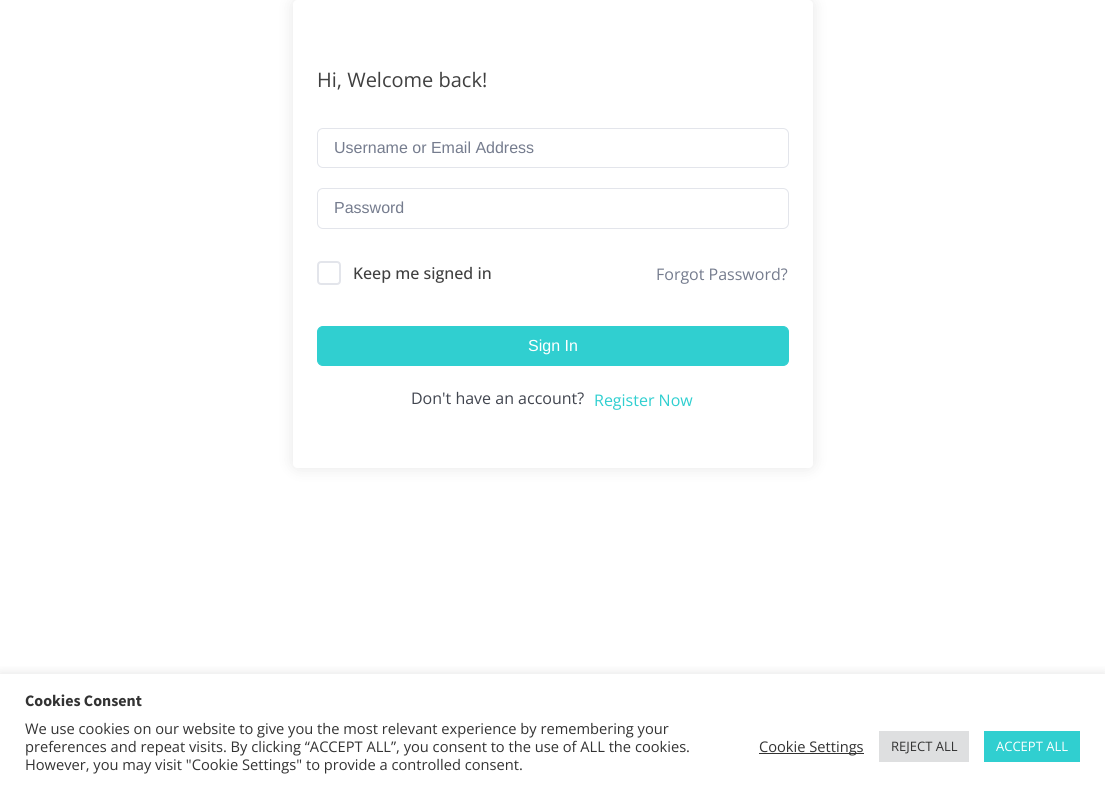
import math
import cairo

surface = cairo.ImageSurface(cairo.FORMAT_RGB24, 1105, 787)
cr = cairo.Context(surface)
options = cairo.FontOptions()
options.set_hint_metrics(cairo.HINT_METRICS_OFF)
options.set_hint_style(cairo.HINT_STYLE_NONE)
cr.set_font_options(options)
cr.set_miter_limit(4)


def rgb(code):
    cr.set_source_rgb(*(v / 255 for v in bytes.fromhex(code[-6:])))


def rrect(x, y, w, h, r):
    cr.new_sub_path()
    for i, (u, v) in enumerate([(x + w - r, y + h - r), (x + r, y + h - r), (x + r, y + r), (x + w - r, y + r)]):
        cr.arc(u, v, r, i * math.pi / 2, (i + 1) * math.pi / 2)
    cr.close_path()


def soft_shadow(x, y, w, h, r, blur, alpha):
    cr.push_group_with_content(cairo.CONTENT_ALPHA)
    cr.set_operator(cairo.OPERATOR_SOURCE)
    for i in range(15, -16, -2):
        e = blur * i / 6
        if min(w, h) + 2 * e > 0:
            cr.set_source_rgba(0, 0, 0, alpha * math.erfc((i - 1) / 8.5) / 2)
            rrect(x - e, y - e, w + 2 * e, h + 2 * e, max(0, min(r + e + blur * .6, min(w, h) / 2 + e)))
            cr.fill()
    cr.mask(cr.pop_group())


rgb("#ffffff")
cr.paint()
cr.save()
cr.set_fill_rule(cairo.FILL_RULE_EVEN_ODD)
cr.new_path()
cr.move_to(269, 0)
cr.line_to(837, 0)
cr.line_to(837, 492)
cr.line_to(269, 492)
cr.close_path()
cr.move_to(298, 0)
cr.line_to(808, 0)
cr.curve_to(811, 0, 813, 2, 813, 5)
cr.line_to(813, 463)
cr.curve_to(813, 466, 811, 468, 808, 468)
cr.line_to(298, 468)
cr.curve_to(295, 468, 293, 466, 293, 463)
cr.line_to(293, 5)
cr.curve_to(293, 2, 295, 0, 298, 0)
cr.close_path()
cr.clip()
rgb("#000000")
soft_shadow(293, 0, 520, 468, 5, 7.5, 0.1)
cr.restore()
rrect(317.5, 128.5, 471, 39, 5.5)
rgb("#e3e5eb")
cr.set_line_width(1)
cr.stroke()
rrect(317.5, 188.5, 471, 40, 5.5)
cr.stroke()
rrect(318, 262, 22, 22, 3)
cr.set_line_width(2)
cr.stroke()
rgb("#30cfd0")
rrect(317.5, 326.5, 471, 39, 5.5)
cr.fill_preserve()
cr.set_line_width(1)
cr.stroke()
cr.save()
cr.rectangle(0, 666, 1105, 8)
cr.clip()
rgb("#acabab")
soft_shadow(0, 673, 1105, 113, 0, 5, 0.3)
cr.restore()
for x, y, w, h, color in [
    (759, 753, 105, 1, "#333333"),
    (879, 731, 90, 31, "#dedfe0"),
    (984, 731, 96, 31, "#30cfd0"),
]:
    rgb(color)
    cr.rectangle(x, y, w, h)
    cr.fill()
cr.select_font_face("Open Sans")
cr.set_font_size(20)
rgb("#404040")
cr.move_to(317, 87)
cr.show_text("Hi, Welcome back!")
cr.select_font_face("Liberation Sans")
cr.set_font_size(16)
rgb("#757c8e")
cr.move_to(334, 153)
cr.show_text("Username or Email Address")
cr.move_to(334, 213)
cr.show_text("Password")
cr.select_font_face("Open Sans Medium")
rgb("#404040")
cr.move_to(353, 279)
cr.show_text("Keep me signed in")
cr.select_font_face("Open Sans")
rgb("#757c8e")
cr.move_to(656, 280)
cr.show_text("Forgot Password?")
cr.select_font_face("Liberation Sans")
rgb("#ffffff")
cr.move_to(528, 351)
cr.show_text("Sign In")
cr.select_font_face("Open Sans")
rgb("#41454f")
cr.move_to(411, 404)
cr.show_text("Don't have an account?")
rgb("#30cfd0")
cr.move_to(594, 406)
cr.show_text("Register Now")
cr.select_font_face("Source Sans Pro", cairo.FONT_SLANT_NORMAL, cairo.FONT_WEIGHT_BOLD)
rgb("#333333")
cr.move_to(25, 706)
cr.show_text("Cookies Consent")
cr.select_font_face("Open Sans")
cr.set_font_size(14.65)
for x, y, s in [
    (25, 734, "We use cookies on our website to give you the most relevant experience by remembering your"),
    (25, 752, "preferences and repeat visits. By clicking “ACCEPT ALL”, you consent to the use of ALL the cookies."),
    (25, 770, "However, you may visit \"Cookie Settings\" to provide a controlled consent."),
    (759, 752, "Cookie Settings"),
]:
    cr.move_to(x, y)
    cr.show_text(s)
cr.set_font_size(13)
cr.move_to(891, 751)
cr.show_text("REJECT ALL")
rgb("#ffffff")
cr.move_to(996, 751)
cr.show_text("ACCEPT ALL")
surface.write_to_png("page.png")
